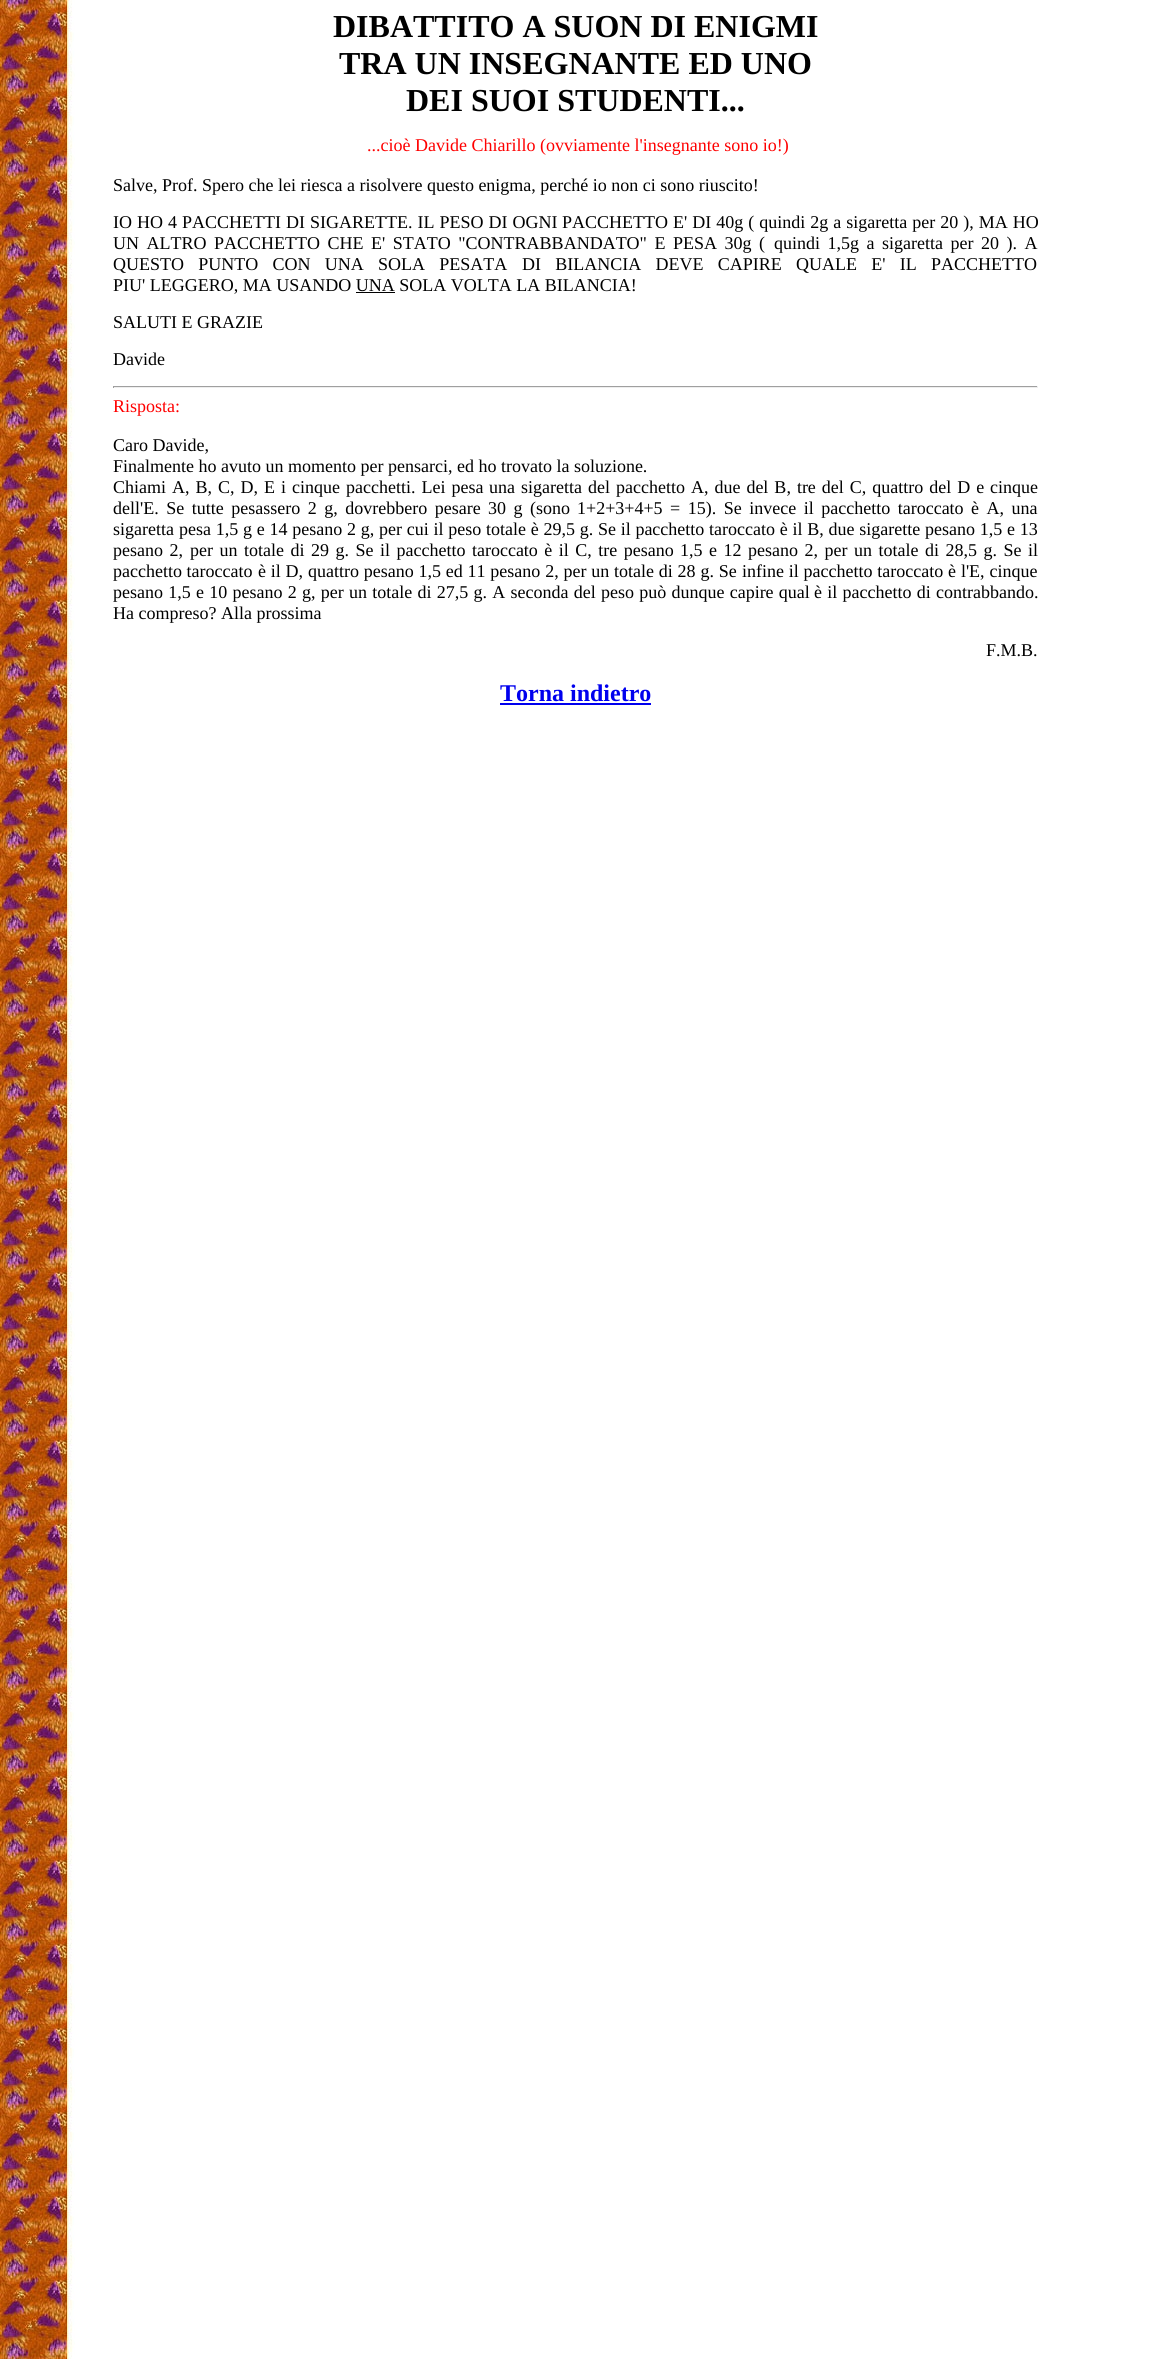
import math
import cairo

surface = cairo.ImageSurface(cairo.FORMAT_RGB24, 1151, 2359)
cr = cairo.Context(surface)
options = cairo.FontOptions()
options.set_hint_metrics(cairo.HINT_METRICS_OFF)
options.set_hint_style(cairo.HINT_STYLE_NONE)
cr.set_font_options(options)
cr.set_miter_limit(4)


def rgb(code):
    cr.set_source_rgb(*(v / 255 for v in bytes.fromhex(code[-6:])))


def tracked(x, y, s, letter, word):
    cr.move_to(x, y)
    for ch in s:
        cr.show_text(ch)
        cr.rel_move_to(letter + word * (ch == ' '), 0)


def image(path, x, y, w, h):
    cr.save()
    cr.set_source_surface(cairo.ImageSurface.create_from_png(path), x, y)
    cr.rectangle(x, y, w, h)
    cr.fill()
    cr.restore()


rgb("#ffffff")
cr.paint()
image("img/1.png", 0, 0, 75, 2359)
for x, y, w, h, color in [
    (356, 292, 39, 1, "#000000"),
    (113, 386, 925, 1, "#9f9f9f"),
    (1037, 386, 1, 2, "#eeeeee"),
    (113, 387, 925, 1, "#eeeeee"),
    (113, 386, 1, 2, "#9f9f9f"),
    (500, 703, 151, 2, "#0000ee"),
]:
    rgb(color)
    cr.rectangle(x, y, w, h)
    cr.fill()
cr.select_font_face("Liberation Serif", cairo.FONT_SLANT_NORMAL, cairo.FONT_WEIGHT_BOLD)
cr.set_font_size(32)
rgb("#000000")
for x, y, s in [
    (333, 37, "DIBATTITO A SUON DI ENIGMI"),
    (339, 74, "TRA UN INSEGNANTE ED UNO"),
    (406, 111, "DEI SUOI STUDENTI..."),
]:
    cr.move_to(x, y)
    cr.show_text(s)
cr.select_font_face("Liberation Serif")
cr.set_font_size(18)
rgb("#ff0000")
cr.move_to(367, 151)
cr.show_text("...cioè Davide Chiarillo (ovviamente l'insegnante sono io!)")
rgb("#000000")
cr.move_to(113, 191)
cr.show_text("Salve, Prof. Spero che lei riesca a risolvere questo enigma, perché io non ci sono riuscito!")
tracked(113, 228, "IO HO 4 PACCHETTI DI SIGARETTE. IL PESO DI OGNI", 0, 0.5)
tracked(562, 228, "PACCHETTO E' DI 40g ( quindi 2g a sigaretta per 20 ), MA HO", 0, 0.5)
for x, y, s in [
    (113, 249, "UN ALTRO"),
    (214, 249, "PACCHETTO CHE E' STATO \"CONTRABBANDATO\" E PESA 30g ("),
    (774, 249, "quindi 1,5g a sigaretta per 20 ). A"),
]:
    tracked(x, y, s, 0, 3)
tracked(113, 270, "QUESTO PUNTO CON UNA SOLA PESATA", 0, 9.75)
tracked(522, 270, "DI BILANCIA DEVE CAPIRE QUALE E' IL PACCHETTO", 0, 9.75)
for x, y, s in [
    (113, 291, "PIU' LEGGERO, MA USANDO UNA SOLA VOLTA LA BILANCIA!"),
    (113, 328, "SALUTI E GRAZIE"),
    (113, 365, "Davide"),
]:
    cr.move_to(x, y)
    cr.show_text(s)
rgb("#ff0000")
cr.move_to(113, 412)
cr.show_text("Risposta:")
rgb("#000000")
cr.move_to(113, 451)
cr.show_text("Caro Davide,")
cr.move_to(113, 472)
cr.show_text("Finalmente ho avuto un momento per pensarci, ed ho trovato la soluzione.")
tracked(113, 493, "Chiami A, B, C, D, E i cinque pacchetti. Lei pesa", 0, 1.5)
tracked(489, 493, "una sigaretta del pacchetto A, due del B, tre del C, quattro del D e", 0, 1.5)
cr.move_to(990, 493)
cr.show_text("cinque")
tracked(113, 514, "dell'E. Se tutte pesassero 2 g, dovrebbero pesare 30 g (sono", 0, 3)
tracked(577, 514, "1+2+3+4+5 = 15). Se invece il pacchetto taroccato è A, una", 0, 3)
cr.move_to(113, 535)
cr.show_text("sigaretta")
tracked(179, 535, "pesa 1,5 g e 14 pesano 2 g, per cui il peso totale è 29,5 g. Se il pacchetto taroccato è il B, due sigarette pesano 1,5 e 13", 0, 0.25)
for x, y, s in [
    (113, 556, "pesano 2,"),
    (190, 556, "per un totale di 29 g. Se il pacchetto taroccato è il C, tre pesano"),
    (680, 556, "1,5 e 12 pesano 2, per un totale di 28,5 g. Se il"),
]:
    tracked(x, y, s, 0, 2)
cr.move_to(113, 577)
cr.show_text("pacchetto taroccato")
tracked(258, 577, "è il D, quattro pesano 1,5 ed 11 pesano 2, per un totale di 28 g. Se", 0, 0.3)
tracked(742, 577, "infine il pacchetto taroccato è l'E, cinque", 0, 0.3)
for x, y, s in [
    (113, 598, "pesano 1,5 e 10 pesano 2"),
    (302, 598, "g, per un totale di 27,5 g. A seconda del peso può dunque capire qual"),
    (814, 598, "è il pacchetto di contrabbando."),
]:
    tracked(x, y, s, 0, 0.75)
cr.move_to(113, 619)
cr.show_text("Ha compreso? Alla prossima")
cr.move_to(986, 656)
cr.show_text("F.M.B.")
cr.select_font_face("Liberation Serif", cairo.FONT_SLANT_NORMAL, cairo.FONT_WEIGHT_BOLD)
cr.set_font_size(24)
rgb("#0000ee")
cr.move_to(500, 701)
cr.show_text("Torna indietro")
surface.write_to_png("page.png")
